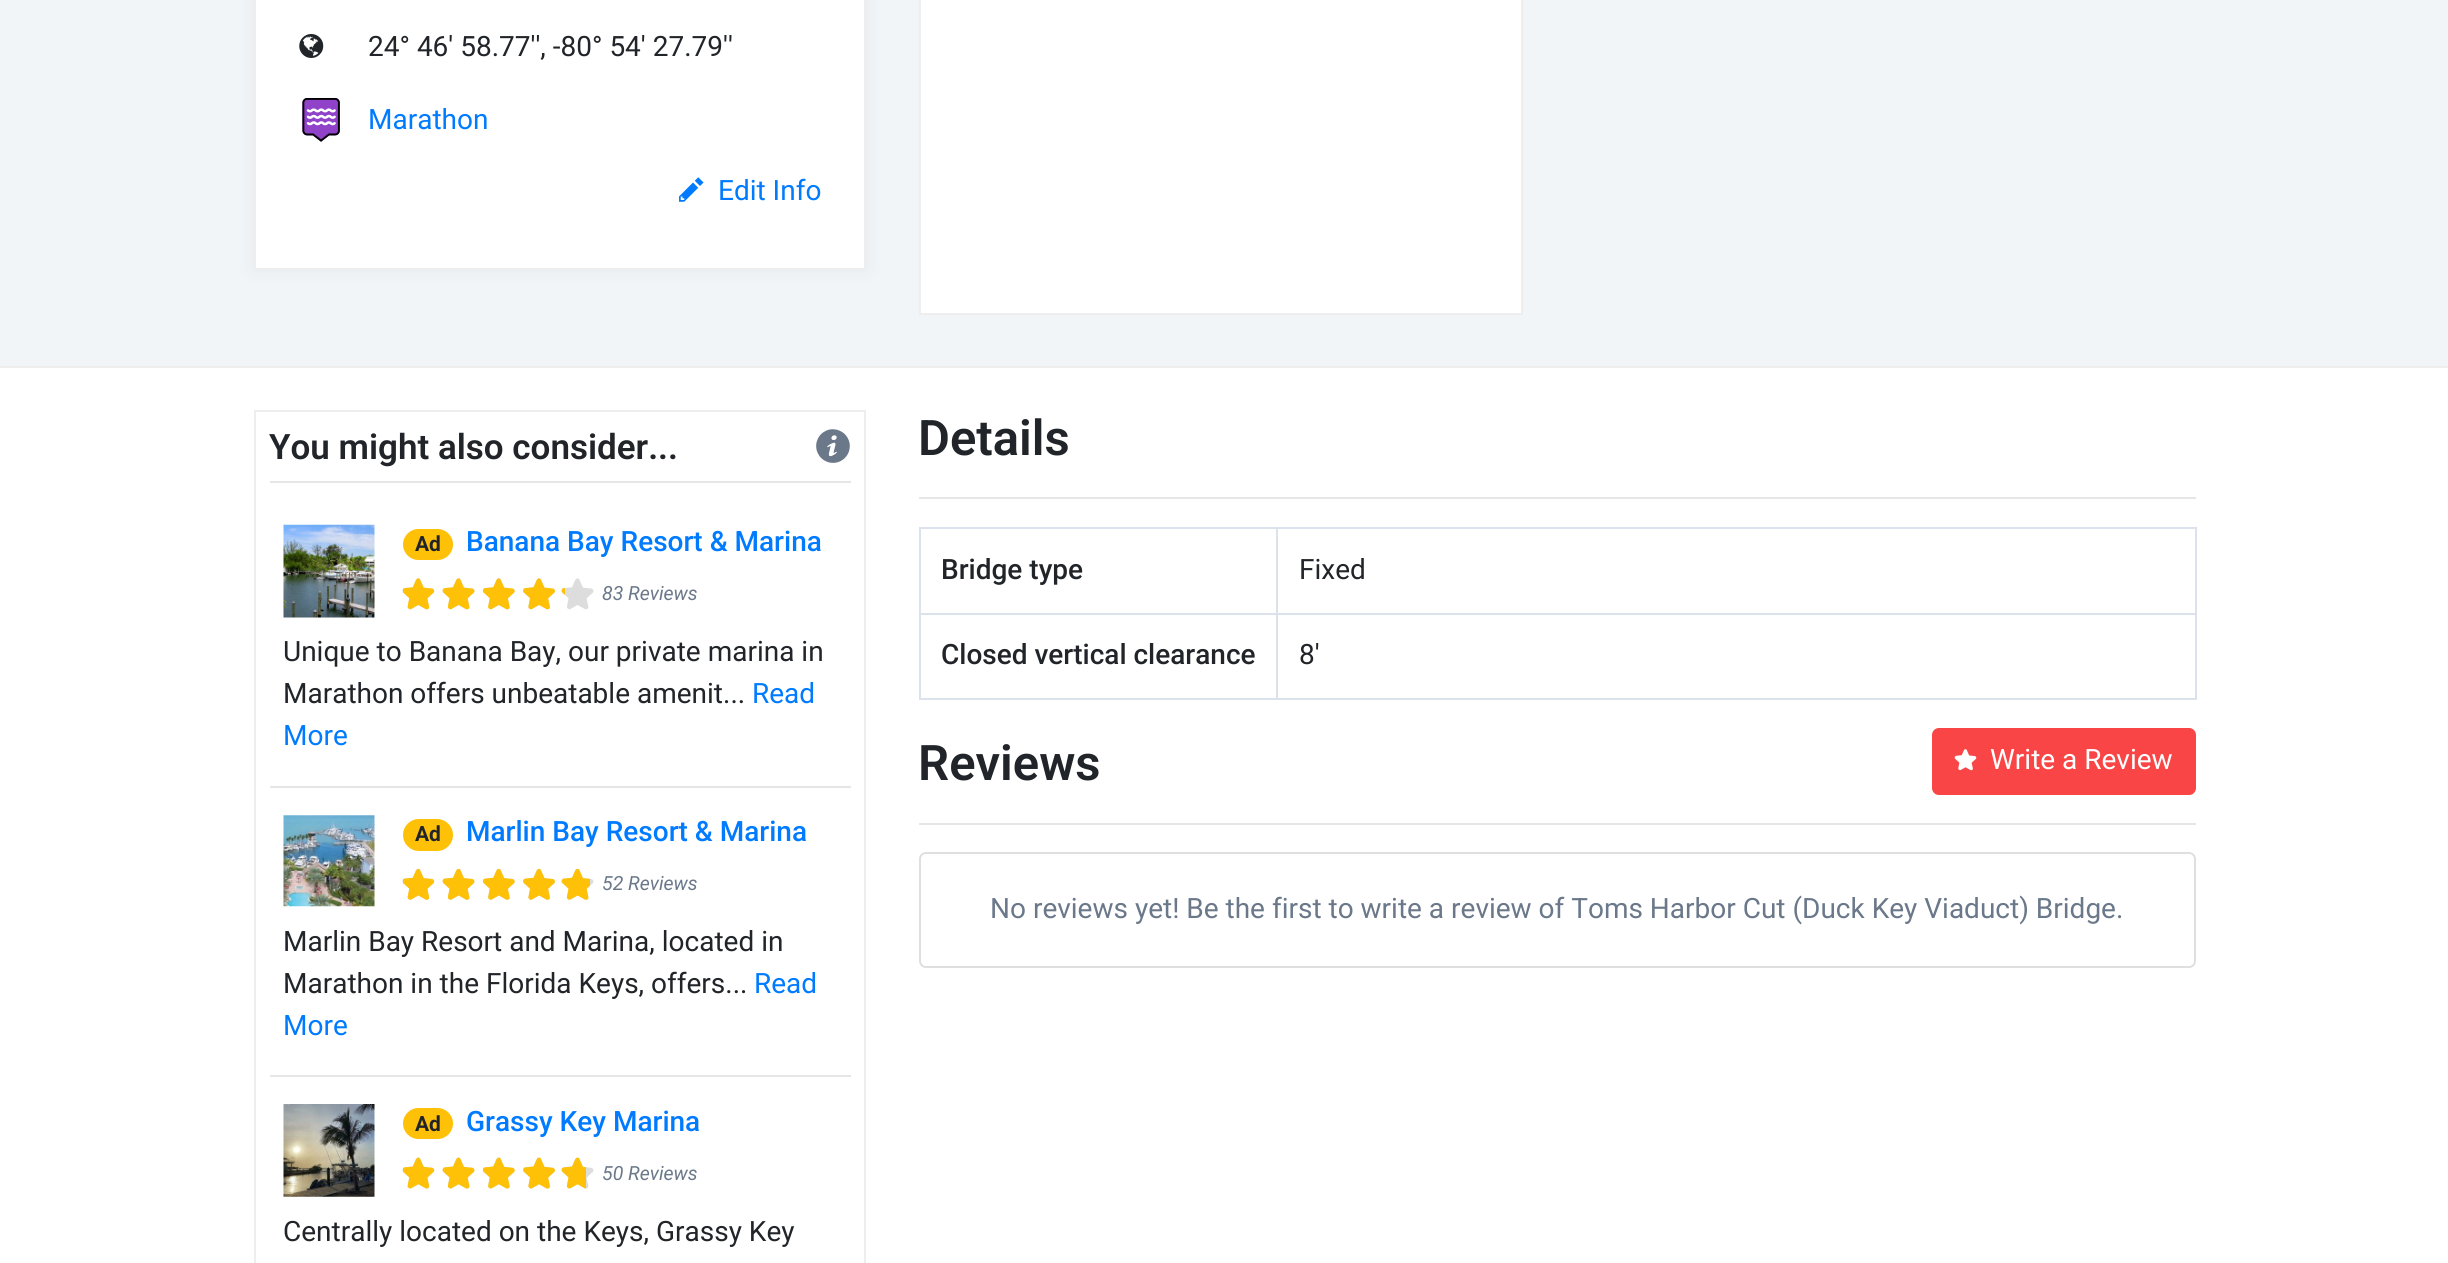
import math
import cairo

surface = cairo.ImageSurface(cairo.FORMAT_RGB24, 2448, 1263)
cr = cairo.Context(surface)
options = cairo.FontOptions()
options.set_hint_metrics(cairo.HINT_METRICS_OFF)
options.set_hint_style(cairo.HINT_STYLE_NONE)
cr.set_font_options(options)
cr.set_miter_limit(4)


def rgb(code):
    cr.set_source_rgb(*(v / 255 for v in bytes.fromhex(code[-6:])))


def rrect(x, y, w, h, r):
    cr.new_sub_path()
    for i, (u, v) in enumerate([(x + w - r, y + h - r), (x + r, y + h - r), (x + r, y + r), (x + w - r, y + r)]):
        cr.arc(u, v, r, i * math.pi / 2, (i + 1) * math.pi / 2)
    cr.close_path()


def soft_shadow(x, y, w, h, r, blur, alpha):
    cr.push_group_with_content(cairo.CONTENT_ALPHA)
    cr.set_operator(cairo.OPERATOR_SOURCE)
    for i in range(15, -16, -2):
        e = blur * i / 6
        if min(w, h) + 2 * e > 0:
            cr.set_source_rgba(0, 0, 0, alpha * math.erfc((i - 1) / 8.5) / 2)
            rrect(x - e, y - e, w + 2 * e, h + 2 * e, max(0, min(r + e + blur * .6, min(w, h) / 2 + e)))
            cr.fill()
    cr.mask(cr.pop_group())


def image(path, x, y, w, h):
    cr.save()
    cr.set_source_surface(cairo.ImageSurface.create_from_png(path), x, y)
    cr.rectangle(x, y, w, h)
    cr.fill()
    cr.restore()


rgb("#ffffff")
cr.paint()
rgb("#f1f5f8")
cr.rectangle(0, 0, 2448, 366)
cr.fill()
rgb("#eeeeee")
cr.rectangle(0, 366, 2448, 2)
cr.fill()
rgb("#000000")
soft_shadow(254, -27, 612, 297, 0, 9, 0.05)
rgb("#ffffff")
cr.rectangle(255, -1, 610, 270)
cr.fill_preserve()
rgb("#eeeeee")
cr.stroke()
image("img/1.png", 299, 34, 25, 24)
image("img/2.png", 302, 98, 38, 44)
image("img/3.png", 679, 177, 25, 25)
rgb("#ffffff")
cr.rectangle(920, -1, 602, 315)
cr.fill_preserve()
rgb("#eeeeee")
cr.stroke()
cr.rectangle(255, 411, 610, 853)
cr.stroke()
image("img/4.png", 816, 429, 34, 34)
rgb("#e6e6e6")
cr.rectangle(270, 481, 581, 2)
cr.fill()
image("img/5.png", 283, 524, 92, 94)
rgb("#ffc107")
rrect(403, 529, 50, 31, 15.5)
cr.fill()
image("img/6.png", 402, 578, 33, 32)
image("img/7.png", 442, 578, 33, 32)
image("img/8.png", 483, 578, 32, 32)
image("img/9.png", 523, 578, 32, 32)
image("img/7.png", 561, 578, 33, 32)
image("img/10.png", 403, 578, 32, 32)
image("img/11.png", 442, 578, 33, 32)
image("img/12.png", 482, 578, 33, 32)
image("img/13.png", 523, 578, 32, 32)
image("img/14.png", 561, 588, 4, 7)
rgb("#e6e6e6")
cr.rectangle(270, 786, 581, 2)
cr.fill()
image("img/15.png", 283, 815, 92, 92)
rgb("#ffc107")
rrect(403, 819, 50, 32, 16)
cr.fill()
image("img/21.png", 402, 869, 33, 31)
image("img/16.png", 403, 868, 32, 32)
image("img/22.png", 442, 869, 33, 31)
image("img/17.png", 442, 868, 33, 32)
image("img/23.png", 483, 869, 32, 31)
image("img/18.png", 482, 868, 33, 32)
image("img/24.png", 523, 869, 32, 31)
image("img/19.png", 523, 868, 32, 32)
image("img/22.png", 561, 869, 33, 31)
image("img/20.png", 561, 868, 29, 32)
rgb("#e6e6e6")
cr.rectangle(270, 1075, 581, 2)
cr.fill()
image("img/25.png", 283, 1104, 92, 93)
rgb("#ffc107")
rrect(403, 1108, 50, 31, 15.5)
cr.fill()
image("img/26.png", 402, 1157, 33, 32)
image("img/27.png", 442, 1157, 33, 32)
image("img/28.png", 483, 1157, 32, 32)
image("img/29.png", 523, 1157, 32, 32)
image("img/27.png", 561, 1157, 33, 32)
image("img/30.png", 403, 1157, 32, 32)
image("img/31.png", 442, 1157, 33, 32)
image("img/32.png", 482, 1157, 33, 32)
image("img/33.png", 523, 1157, 32, 32)
image("img/34.png", 561, 1157, 25, 32)
for x, y, w, h, color in [
    (919, 497, 1277, 2, "#e6e6e6"),
    (919, 527, 1277, 2, "#dbe2eb"),
    (2195, 527, 2, 173, "#dbe2eb"),
    (919, 698, 1277, 2, "#dbe2eb"),
    (919, 527, 2, 173, "#dbe2eb"),
    (1276, 613, 920, 2, "#dbe2eb"),
    (1276, 613, 2, 87, "#dbe2eb"),
    (919, 613, 359, 2, "#dbe2eb"),
    (1276, 527, 2, 87, "#dbe2eb"),
]:
    rgb(color)
    cr.rectangle(x, y, w, h)
    cr.fill()
rgb("#f94545")
rrect(1933, 729, 262, 65, 6)
cr.fill_preserve()
cr.stroke()
image("img/35.png", 1954, 749, 23, 22)
rgb("#e6e6e6")
cr.rectangle(919, 823, 1277, 2)
cr.fill()
rrect(920, 853, 1275, 114, 6)
rgb("#dfdfdf")
cr.stroke()
cr.select_font_face("Roboto")
cr.set_font_size(28)
rgb("#212529")
cr.move_to(368, 56)
cr.show_text("24° 46' 58.77'', -80° 54' 27.79''")
rgb("#007bff")
cr.move_to(368, 129)
cr.show_text("Marathon")
cr.move_to(718, 200)
cr.show_text("Edit Info")
cr.select_font_face("Roboto SemiBold")
cr.set_font_size(35)
rgb("#212529")
cr.move_to(269, 459)
cr.show_text("You might also consider...")
cr.select_font_face("Roboto", cairo.FONT_SLANT_NORMAL, cairo.FONT_WEIGHT_BOLD)
cr.set_font_size(21)
cr.move_to(415, 551)
cr.show_text("Ad")
cr.select_font_face("Roboto Medium")
cr.set_font_size(28)
rgb("#007bff")
cr.move_to(466, 551)
cr.show_text("Banana Bay Resort & Marina")
cr.select_font_face("Roboto", cairo.FONT_SLANT_ITALIC)
cr.set_font_size(19.5)
rgb("#6a788a")
cr.move_to(602, 600)
cr.show_text("83 Reviews")
cr.select_font_face("Roboto")
cr.set_font_size(28)
rgb("#212529")
cr.move_to(283, 661)
cr.show_text("Unique to Banana Bay, our private marina in")
cr.move_to(283, 703)
cr.show_text("Marathon offers unbeatable amenit...")
rgb("#007bff")
cr.move_to(752, 703)
cr.show_text("Read")
cr.move_to(283, 745)
cr.show_text("More")
cr.select_font_face("Roboto", cairo.FONT_SLANT_NORMAL, cairo.FONT_WEIGHT_BOLD)
cr.set_font_size(21)
rgb("#212529")
cr.move_to(415, 841)
cr.show_text("Ad")
cr.select_font_face("Roboto Medium")
cr.set_font_size(28)
rgb("#007bff")
cr.move_to(466, 841)
cr.show_text("Marlin Bay Resort & Marina")
cr.select_font_face("Roboto", cairo.FONT_SLANT_ITALIC)
cr.set_font_size(19.5)
rgb("#6a788a")
cr.move_to(602, 890)
cr.show_text("52 Reviews")
cr.select_font_face("Roboto")
cr.set_font_size(28)
rgb("#212529")
cr.move_to(283, 951)
cr.show_text("Marlin Bay Resort and Marina, located in")
cr.move_to(283, 993)
cr.show_text("Marathon in the Florida Keys, offers...")
rgb("#007bff")
cr.move_to(754, 993)
cr.show_text("Read")
cr.move_to(283, 1035)
cr.show_text("More")
cr.select_font_face("Roboto", cairo.FONT_SLANT_NORMAL, cairo.FONT_WEIGHT_BOLD)
cr.set_font_size(21)
rgb("#212529")
cr.move_to(415, 1131)
cr.show_text("Ad")
cr.select_font_face("Roboto Medium")
cr.set_font_size(28)
rgb("#007bff")
cr.move_to(466, 1131)
cr.show_text("Grassy Key Marina")
cr.select_font_face("Roboto", cairo.FONT_SLANT_ITALIC)
cr.set_font_size(19.5)
rgb("#6a788a")
cr.move_to(602, 1180)
cr.show_text("50 Reviews")
cr.select_font_face("Roboto")
cr.set_font_size(28)
rgb("#212529")
cr.move_to(283, 1241)
cr.show_text("Centrally located on the Keys, Grassy Key")
cr.select_font_face("Roboto SemiBold")
cr.set_font_size(49)
cr.move_to(918, 455)
cr.show_text("Details")
cr.select_font_face("Roboto Medium")
cr.set_font_size(28)
cr.move_to(941, 579)
cr.show_text("Bridge type")
cr.select_font_face("Roboto")
cr.move_to(1299, 579)
cr.show_text("Fixed")
cr.select_font_face("Roboto Medium")
cr.move_to(941, 664)
cr.show_text("Closed vertical clearance")
cr.select_font_face("Roboto")
cr.move_to(1299, 664)
cr.show_text("8'")
cr.select_font_face("Roboto SemiBold")
cr.set_font_size(49)
cr.move_to(918, 780)
cr.show_text("Reviews")
cr.select_font_face("Roboto")
cr.set_font_size(28)
rgb("#ffffff")
cr.move_to(1990, 769)
cr.show_text("Write a Review")
rgb("#6a788a")
cr.move_to(990, 918)
cr.show_text("No reviews yet! Be the first to write a review of Toms Harbor Cut (Duck Key Viaduct) Bridge.")
surface.write_to_png("page.png")
